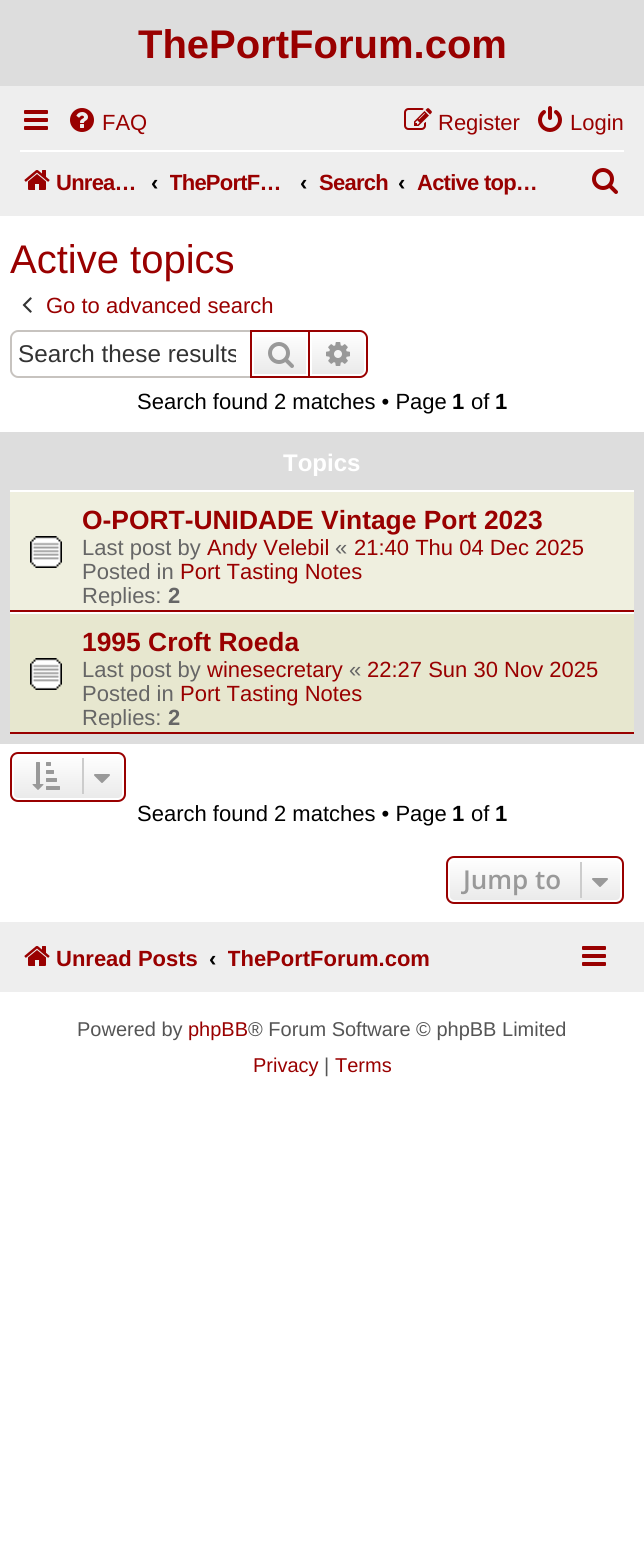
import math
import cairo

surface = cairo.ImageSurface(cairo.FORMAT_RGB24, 644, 1560)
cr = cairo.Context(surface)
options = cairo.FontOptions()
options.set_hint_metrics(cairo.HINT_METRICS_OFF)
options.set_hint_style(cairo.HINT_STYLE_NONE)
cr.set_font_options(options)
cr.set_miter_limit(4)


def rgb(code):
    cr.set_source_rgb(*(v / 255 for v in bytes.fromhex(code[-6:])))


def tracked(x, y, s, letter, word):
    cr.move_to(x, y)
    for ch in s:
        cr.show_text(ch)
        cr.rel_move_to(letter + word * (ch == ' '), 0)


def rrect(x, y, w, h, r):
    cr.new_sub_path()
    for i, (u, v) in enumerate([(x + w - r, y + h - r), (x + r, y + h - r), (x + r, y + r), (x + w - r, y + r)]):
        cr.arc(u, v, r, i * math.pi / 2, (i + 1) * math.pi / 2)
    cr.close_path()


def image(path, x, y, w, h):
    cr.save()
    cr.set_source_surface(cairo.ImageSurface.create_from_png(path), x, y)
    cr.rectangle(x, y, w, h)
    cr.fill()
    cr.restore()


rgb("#ffffff")
cr.paint()
rgb("#dddddd")
cr.rectangle(0, 0, 644, 86)
cr.fill()
rgb("#eeeeee")
cr.rectangle(0, 86, 644, 130)
cr.fill()
image("img/1.png", 24, 110, 24, 20)
image("img/2.png", 70, 108, 24, 24)
image("img/3.png", 404, 108, 28, 22)
image("img/4.png", 538, 106, 24, 26)
rgb("#ffffff")
cr.rectangle(20, 150, 604, 2)
cr.fill()
image("img/5.png", 24, 170, 26, 20)
image("img/6.png", 592, 168, 26, 26)
image("img/7.png", 22, 297, 10, 16)
rgb("#c7c3bf")
cr.set_fill_rule(cairo.FILL_RULE_EVEN_ODD)
cr.new_path()
cr.move_to(18, 330)
cr.line_to(250, 330)
cr.line_to(250, 378)
cr.line_to(18, 378)
cr.curve_to(14, 378, 10, 374, 10, 370)
cr.line_to(10, 338)
cr.curve_to(10, 334, 14, 330, 18, 330)
cr.close_path()
cr.move_to(18, 332)
cr.line_to(250, 332)
cr.line_to(250, 376)
cr.line_to(18, 376)
cr.curve_to(15, 376, 12, 373, 12, 370)
cr.line_to(12, 338)
cr.curve_to(12, 335, 15, 332, 18, 332)
cr.close_path()
cr.fill()
gradient = cairo.LinearGradient(280, 332, 280, 376)
gradient.add_color_stop_rgba(0, 1, 1, 1, 1)
gradient.add_color_stop_rgba(1, 0.914, 0.914, 0.914, 1)
cr.set_source(gradient)
cr.rectangle(254, 337, 52, 37)
cr.fill()
cr.rectangle(251, 331, 58, 46)
rgb("#990000")
cr.stroke()
image("img/8.png", 268, 342, 26, 26)
gradient = cairo.LinearGradient(338, 332, 338, 376)
gradient.add_color_stop_rgba(0, 1, 1, 1, 1)
gradient.add_color_stop_rgba(1, 0.914, 0.914, 0.914, 1)
cr.set_source(gradient)
cr.new_path()
cr.move_to(311, 333)
cr.line_to(360, 333)
cr.curve_to(363, 333, 365, 335, 365, 338)
cr.line_to(365, 370)
cr.curve_to(365, 373, 363, 375, 360, 375)
cr.line_to(311, 375)
cr.close_path()
cr.fill_preserve()
rgb("#ffffff")
cr.stroke()
rgb("#990000")
cr.new_path()
cr.move_to(310, 330)
cr.line_to(360, 330)
cr.curve_to(364, 330, 368, 334, 368, 338)
cr.line_to(368, 370)
cr.curve_to(368, 374, 364, 378, 360, 378)
cr.line_to(310, 378)
cr.close_path()
cr.move_to(310, 332)
cr.line_to(360, 332)
cr.curve_to(363, 332, 366, 335, 366, 338)
cr.line_to(366, 370)
cr.curve_to(366, 373, 363, 376, 360, 376)
cr.line_to(310, 376)
cr.close_path()
cr.fill()
image("img/9.png", 326, 342, 24, 24)
for x, y, w, h, color in [
    (0, 432, 644, 312, "#dddddd"),
    (10, 492, 624, 118, "#efefdf"),
    (10, 490, 624, 2, "#ffffff"),
    (10, 610, 624, 2, "#990000"),
]:
    rgb(color)
    cr.rectangle(x, y, w, h)
    cr.fill()
image("img/10.png", 30, 536, 32, 32)
for x, y, w, h, color in [
    (10, 614, 624, 118, "#e7e7cf"),
    (10, 612, 624, 2, "#ffffff"),
    (10, 732, 624, 2, "#990000"),
]:
    rgb(color)
    cr.rectangle(x, y, w, h)
    cr.fill()
image("img/11.png", 30, 658, 32, 32)
cr.save()
cr.set_fill_rule(cairo.FILL_RULE_WINDING)
rrect(10, 752, 116, 50, 8)
cr.clip()
gradient = cairo.LinearGradient(68, 754, 68, 800)
gradient.add_color_stop_rgba(0, 1, 1, 1, 1)
gradient.add_color_stop_rgba(1, 0.914, 0.914, 0.914, 1)
cr.set_source(gradient)
cr.rectangle(10, 754, 116, 46)
cr.fill()
cr.restore()
rrect(13, 755, 110, 44, 5)
rgb("#ffffff")
cr.stroke()
rrect(11, 753, 114, 48, 7)
rgb("#990000")
cr.stroke()
image("img/12.png", 32, 762, 28, 28)
rgb("#cccccc")
cr.rectangle(82, 758, 2, 36)
cr.fill()
image("img/13.png", 94, 774, 16, 9)
cr.save()
cr.set_fill_rule(cairo.FILL_RULE_WINDING)
rrect(446, 856, 178, 48, 8)
cr.clip()
gradient = cairo.LinearGradient(535, 858, 535, 902)
gradient.add_color_stop_rgba(0, 1, 1, 1, 1)
gradient.add_color_stop_rgba(1, 0.914, 0.914, 0.914, 1)
cr.set_source(gradient)
cr.rectangle(446, 858, 178, 44)
cr.fill()
cr.restore()
rrect(449, 859, 172, 42, 5)
rgb("#ffffff")
cr.stroke()
rrect(447, 857, 176, 46, 7)
rgb("#990000")
cr.stroke()
rgb("#cccccc")
cr.rectangle(580, 862, 2, 36)
cr.fill()
image("img/14.png", 592, 878, 16, 9)
rgb("#eeeeee")
cr.rectangle(0, 922, 644, 70)
cr.fill()
image("img/5.png", 24, 946, 26, 20)
image("img/1.png", 582, 946, 24, 20)
cr.select_font_face("Liberation Sans", cairo.FONT_SLANT_NORMAL, cairo.FONT_WEIGHT_BOLD)
cr.set_font_size(40)
rgb("#990000")
cr.move_to(138, 58)
cr.show_text("ThePortForum.com")
cr.select_font_face("Liberation Sans")
cr.set_font_size(22)
for x, y, s in [
    (102, 130, "FAQ"),
    (438, 130, "Register"),
    (570, 130, "Login"),
]:
    cr.move_to(x, y)
    cr.show_text(s)
cr.select_font_face("Liberation Sans", cairo.FONT_SLANT_NORMAL, cairo.FONT_WEIGHT_BOLD)
tracked(56, 190, "Unrea…", -0.75, 0)
rgb("#000000")
cr.move_to(151, 190)
cr.show_text("‹")
cr.save()
cr.set_fill_rule(cairo.FILL_RULE_WINDING)
cr.rectangle(170, 158, 120, 48)
cr.clip()
rgb("#990000")
tracked(169, 190, "ThePortF…", -0.75, 0)
cr.restore()
cr.move_to(300, 190)
cr.show_text("‹")
rgb("#990000")
tracked(319, 190, "Search", -0.75, 0)
rgb("#000000")
cr.move_to(398, 190)
cr.show_text("‹")
rgb("#990000")
tracked(417, 190, "Active top…", -0.75, 0)
cr.select_font_face("Liberation Sans")
cr.set_font_size(40)
cr.move_to(10, 273)
cr.show_text("Active topics")
cr.set_font_size(22)
cr.move_to(46, 313)
cr.show_text("Go to advanced search")
cr.save()
cr.set_fill_rule(cairo.FILL_RULE_WINDING)
cr.rectangle(18, 340, 218, 28)
cr.clip()
cr.set_font_size(24.25)
rgb("#333333")
cr.move_to(18, 362)
cr.show_text("Search these results")
cr.restore()
rgb("#000000")
cr.move_to(137, 409)
cr.show_text("Search found 2 matches • Page")
cr.select_font_face("Liberation Sans", cairo.FONT_SLANT_NORMAL, cairo.FONT_WEIGHT_BOLD)
cr.move_to(452, 409)
cr.show_text("1")
cr.select_font_face("Liberation Sans")
cr.move_to(471, 409)
cr.show_text("of")
cr.select_font_face("Liberation Sans", cairo.FONT_SLANT_NORMAL, cairo.FONT_WEIGHT_BOLD)
cr.move_to(495, 409)
cr.show_text("1")
cr.set_font_size(24)
rgb("#ffffff")
cr.move_to(283, 471)
cr.show_text("Topics")
cr.set_font_size(26.4)
rgb("#990000")
cr.move_to(82, 529)
cr.show_text("O-PORT-UNIDADE Vintage Port 2023")
cr.select_font_face("Liberation Sans")
cr.set_font_size(22)
rgb("#666666")
cr.move_to(82, 555)
cr.show_text("Last post by")
rgb("#990000")
cr.move_to(207, 555)
cr.show_text("Andy Velebil")
rgb("#666666")
cr.move_to(335, 555)
cr.show_text("«")
rgb("#990000")
cr.move_to(354, 555)
cr.show_text("21:40 Thu 04 Dec 2025")
rgb("#666666")
cr.move_to(82, 579)
cr.show_text("Posted in")
rgb("#990000")
cr.move_to(180, 579)
cr.show_text("Port Tasting Notes")
cr.save()
cr.set_fill_rule(cairo.FILL_RULE_WINDING)
cr.rectangle(10, 496, 624, 110)
cr.clip()
rgb("#666666")
cr.move_to(82, 603)
cr.show_text("Replies:")
cr.restore()
cr.select_font_face("Liberation Sans", cairo.FONT_SLANT_NORMAL, cairo.FONT_WEIGHT_BOLD)
rgb("#666666")
cr.move_to(168, 603)
cr.show_text("2")
cr.set_font_size(26.4)
rgb("#990000")
cr.move_to(82, 651)
cr.show_text("1995 Croft Roeda")
cr.select_font_face("Liberation Sans")
cr.set_font_size(22)
rgb("#666666")
cr.move_to(82, 677)
cr.show_text("Last post by")
rgb("#990000")
cr.move_to(207, 677)
cr.show_text("winesecretary")
rgb("#666666")
cr.move_to(349, 677)
cr.show_text("«")
rgb("#990000")
cr.move_to(367, 677)
cr.show_text("22:27 Sun 30 Nov 2025")
rgb("#666666")
cr.move_to(82, 701)
cr.show_text("Posted in")
rgb("#990000")
cr.move_to(180, 701)
cr.show_text("Port Tasting Notes")
cr.save()
cr.set_fill_rule(cairo.FILL_RULE_WINDING)
cr.rectangle(10, 618, 624, 110)
cr.clip()
rgb("#666666")
cr.move_to(82, 725)
cr.show_text("Replies:")
cr.restore()
cr.select_font_face("Liberation Sans", cairo.FONT_SLANT_NORMAL, cairo.FONT_WEIGHT_BOLD)
rgb("#666666")
cr.move_to(168, 725)
cr.show_text("2")
cr.select_font_face("Liberation Sans")
rgb("#000000")
cr.move_to(137, 821)
cr.show_text("Search found 2 matches • Page")
cr.select_font_face("Liberation Sans", cairo.FONT_SLANT_NORMAL, cairo.FONT_WEIGHT_BOLD)
cr.move_to(452, 821)
cr.show_text("1")
cr.select_font_face("Liberation Sans")
cr.move_to(471, 821)
cr.show_text("of")
cr.select_font_face("Liberation Sans", cairo.FONT_SLANT_NORMAL, cairo.FONT_WEIGHT_BOLD)
cr.move_to(495, 821)
cr.show_text("1")
cr.select_font_face("Open Sans SemiBold")
cr.set_font_size(26)
rgb("#999999")
cr.move_to(463, 889)
cr.show_text("Jump to")
cr.select_font_face("Liberation Sans", cairo.FONT_SLANT_NORMAL, cairo.FONT_WEIGHT_BOLD)
cr.set_font_size(22)
rgb("#990000")
cr.move_to(56, 966)
cr.show_text("Unread Posts")
rgb("#000000")
cr.move_to(209, 966)
cr.show_text("‹")
cr.save()
cr.set_fill_rule(cairo.FILL_RULE_WINDING)
cr.rectangle(228, 934, 202, 48)
cr.clip()
rgb("#990000")
cr.move_to(227, 966)
cr.show_text("ThePortForum.com")
cr.restore()
cr.select_font_face("Liberation Sans")
cr.set_font_size(20)
rgb("#555555")
cr.move_to(77, 1036)
cr.show_text("Powered by")
rgb("#990000")
cr.move_to(188, 1036)
cr.show_text("phpBB")
rgb("#555555")
cr.move_to(248, 1036)
cr.show_text("® Forum Software © phpBB Limited")
rgb("#990000")
cr.move_to(253, 1072)
cr.show_text("Privacy")
rgb("#555555")
cr.move_to(324, 1072)
cr.show_text("|")
rgb("#990000")
cr.move_to(335, 1072)
cr.show_text("Terms")
surface.write_to_png("page.png")
